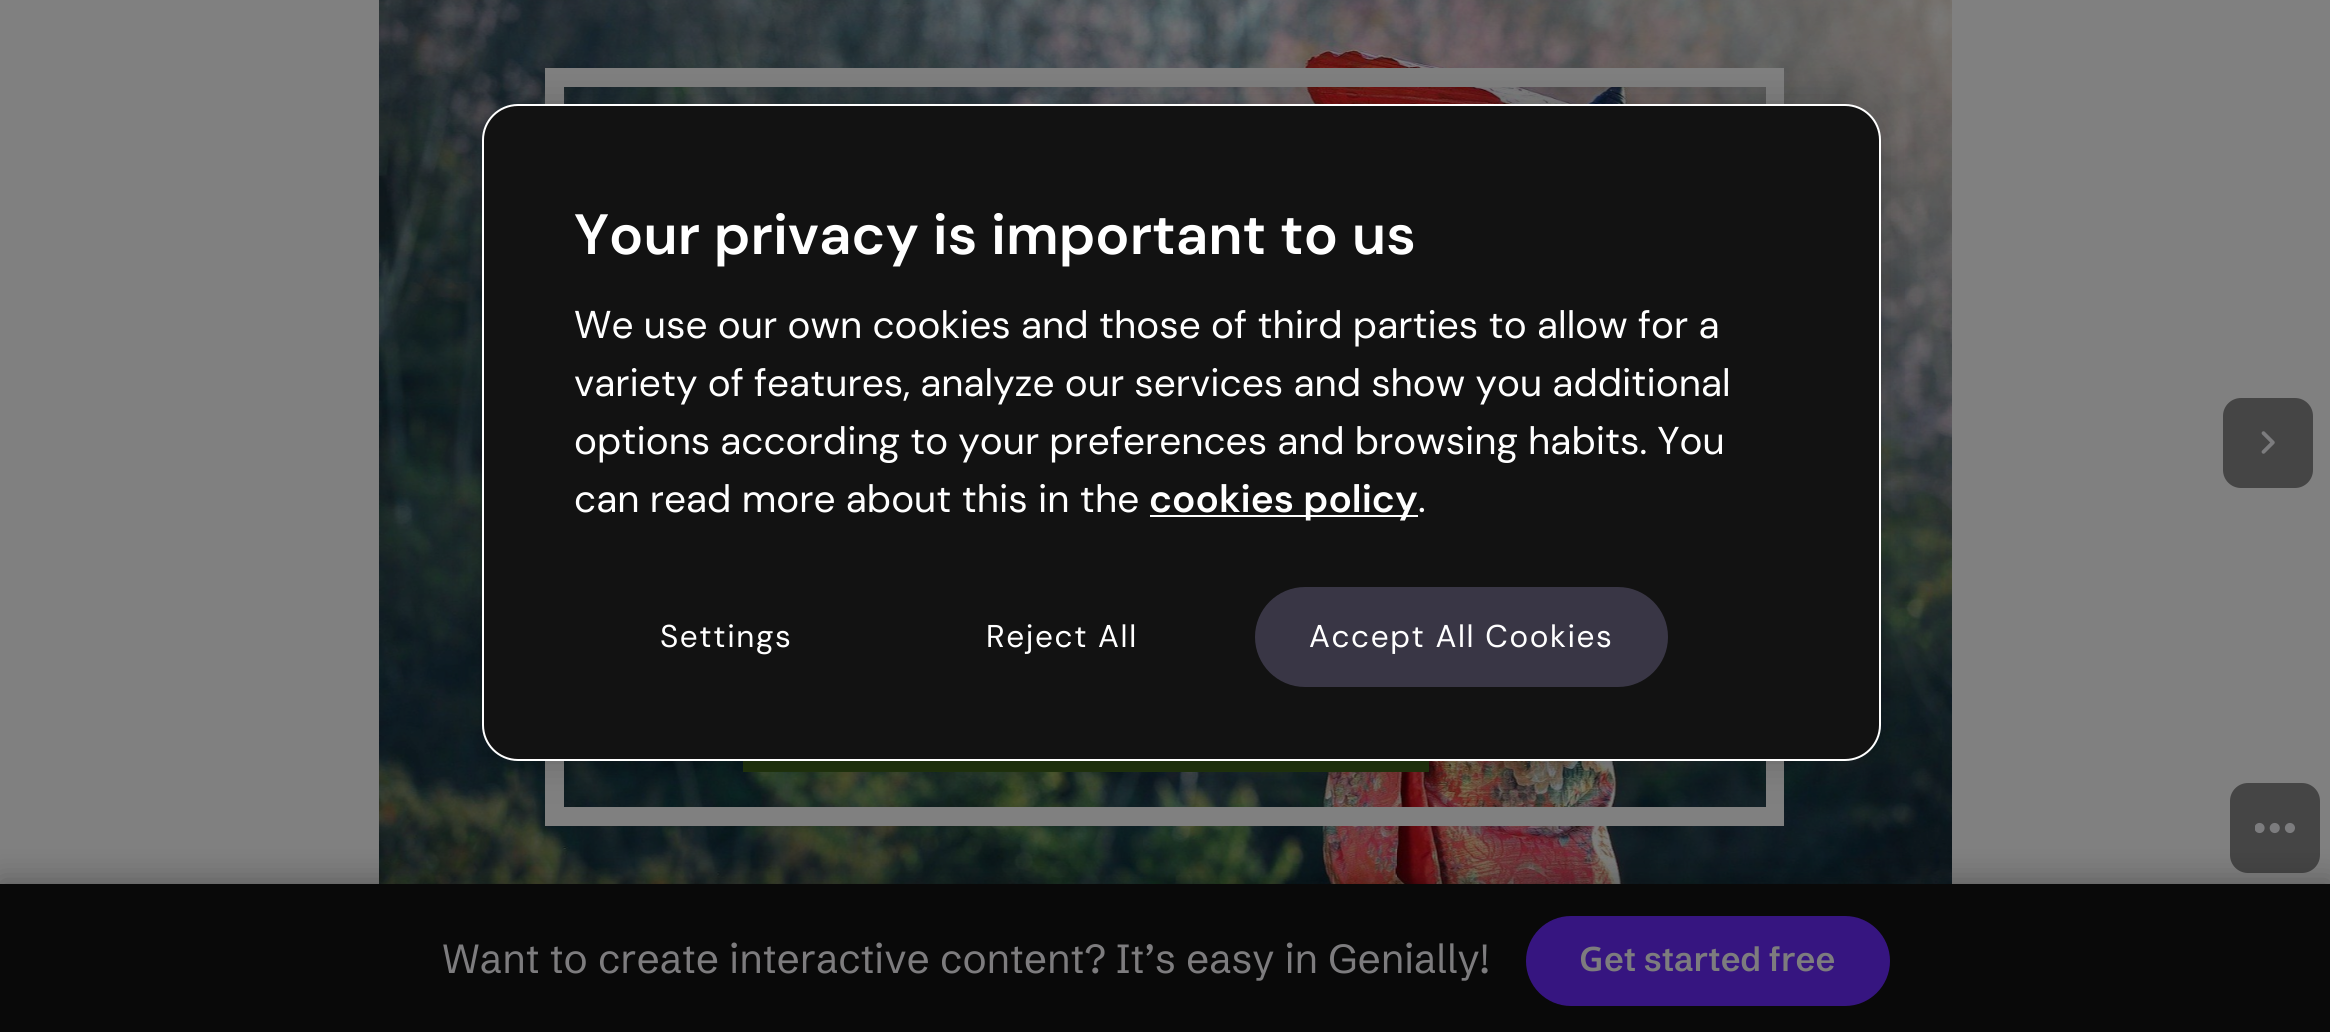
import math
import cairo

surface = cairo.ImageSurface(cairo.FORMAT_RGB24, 2330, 1032)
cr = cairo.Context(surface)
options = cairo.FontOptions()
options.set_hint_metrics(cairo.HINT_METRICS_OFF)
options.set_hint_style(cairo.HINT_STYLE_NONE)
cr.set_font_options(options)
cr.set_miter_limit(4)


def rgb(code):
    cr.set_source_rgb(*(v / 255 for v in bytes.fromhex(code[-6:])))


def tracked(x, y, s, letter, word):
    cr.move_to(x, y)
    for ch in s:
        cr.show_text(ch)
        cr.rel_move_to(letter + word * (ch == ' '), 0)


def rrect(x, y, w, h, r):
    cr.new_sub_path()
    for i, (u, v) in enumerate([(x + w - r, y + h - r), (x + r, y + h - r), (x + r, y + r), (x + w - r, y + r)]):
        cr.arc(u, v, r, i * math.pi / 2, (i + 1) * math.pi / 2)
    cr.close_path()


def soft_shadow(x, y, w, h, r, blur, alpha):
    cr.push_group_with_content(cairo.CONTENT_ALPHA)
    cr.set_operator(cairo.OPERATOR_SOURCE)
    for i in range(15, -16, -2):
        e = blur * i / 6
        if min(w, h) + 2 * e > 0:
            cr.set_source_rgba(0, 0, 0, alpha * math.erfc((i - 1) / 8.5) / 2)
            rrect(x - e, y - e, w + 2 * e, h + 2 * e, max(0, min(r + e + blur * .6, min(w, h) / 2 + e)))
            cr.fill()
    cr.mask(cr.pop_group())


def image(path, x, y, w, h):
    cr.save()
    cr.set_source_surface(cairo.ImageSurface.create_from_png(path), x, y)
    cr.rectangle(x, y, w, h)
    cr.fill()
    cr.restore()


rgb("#808080")
cr.paint()
image("img/1.png", 379, 0, 1573, 884)
cr.save()
cr.rectangle(545, 68, 1239, 758)
cr.clip()
rgb("#808080")
cr.new_path()
cr.move_to(1785, 826)
cr.line_to(545, 826)
cr.line_to(545, 68)
cr.line_to(1785, 68)
cr.close_path()
cr.move_to(564, 807)
cr.line_to(1766, 807)
cr.line_to(1766, 87)
cr.line_to(564, 87)
cr.close_path()
cr.fill()
cr.restore()
rgb("#20330d")
cr.rectangle(743, 761, 686, 11)
cr.fill()
rgb("#000000")
soft_shadow(482, 104, 1399, 657, 36, 20, 0.2)
rgb("#121212")
rrect(483, 105, 1397, 655, 35)
cr.fill_preserve()
rgb("#ffffff")
cr.stroke()
cr.rectangle(1150, 515, 268, 2)
cr.fill()
rgb("#393645")
rrect(1254, 586, 415, 102, 51)
cr.fill_preserve()
rgb("#121212")
cr.stroke()
rgb("#454545")
rrect(2223, 398, 90, 90, 18)
cr.fill()
image("img/2.png", 2261, 431, 14, 23)
rrect(2230, 783, 90, 90, 18)
cr.fill()
image("img/3.png", 2255, 822, 40, 12)
rgb("#090909")
soft_shadow(0, 880, 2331, 151, 0, 14.5, 0.3)
rgb("#090909")
cr.rectangle(0, 884, 2330, 148)
cr.fill()
rgb("#361580")
rrect(1526, 916, 364, 90, 45)
cr.fill()
cr.select_font_face("DM Sans SemiBold")
cr.set_font_size(56.75)
rgb("#ffffff")
cr.move_to(574, 254)
cr.show_text("Your privacy is important to us")
cr.select_font_face("DM Sans")
cr.set_font_size(38.75)
cr.move_to(574, 338)
cr.show_text("We use our own cookies and those of third parties to allow for a")
tracked(574, 396, "variety of features, analyze our services and show you additional", 0, -0.1)
tracked(574, 454, "options according to your preferences and browsing habits. You", 0, -0.25)
cr.move_to(574, 512)
cr.show_text("can read more about this in the")
cr.select_font_face("DM Sans SemiBold")
cr.move_to(1149, 512)
cr.show_text("cookies policy")
cr.select_font_face("DM Sans")
cr.move_to(1418, 512)
cr.show_text(".")
cr.set_font_size(31.5)
for x, y, s in [
    (660, 647, "Settings"),
    (986, 647, "Reject All"),
    (1309, 647, "Accept All Cookies"),
]:
    tracked(x, y, s, 1.6, 0)
cr.select_font_face("Schibsted Grotesk")
cr.set_font_size(40.5)
rgb("#7d7c7e")
cr.move_to(442, 973)
cr.show_text("Want to create interactive content? It’s easy in Genially!")
cr.select_font_face("Noto Sans SemiBold")
cr.set_font_size(33.75)
cr.move_to(1579, 971)
cr.show_text("G")
cr.select_font_face("Schibsted Grotesk SemiBold")
cr.move_to(1604, 971)
cr.show_text("et started free")
surface.write_to_png("page.png")
